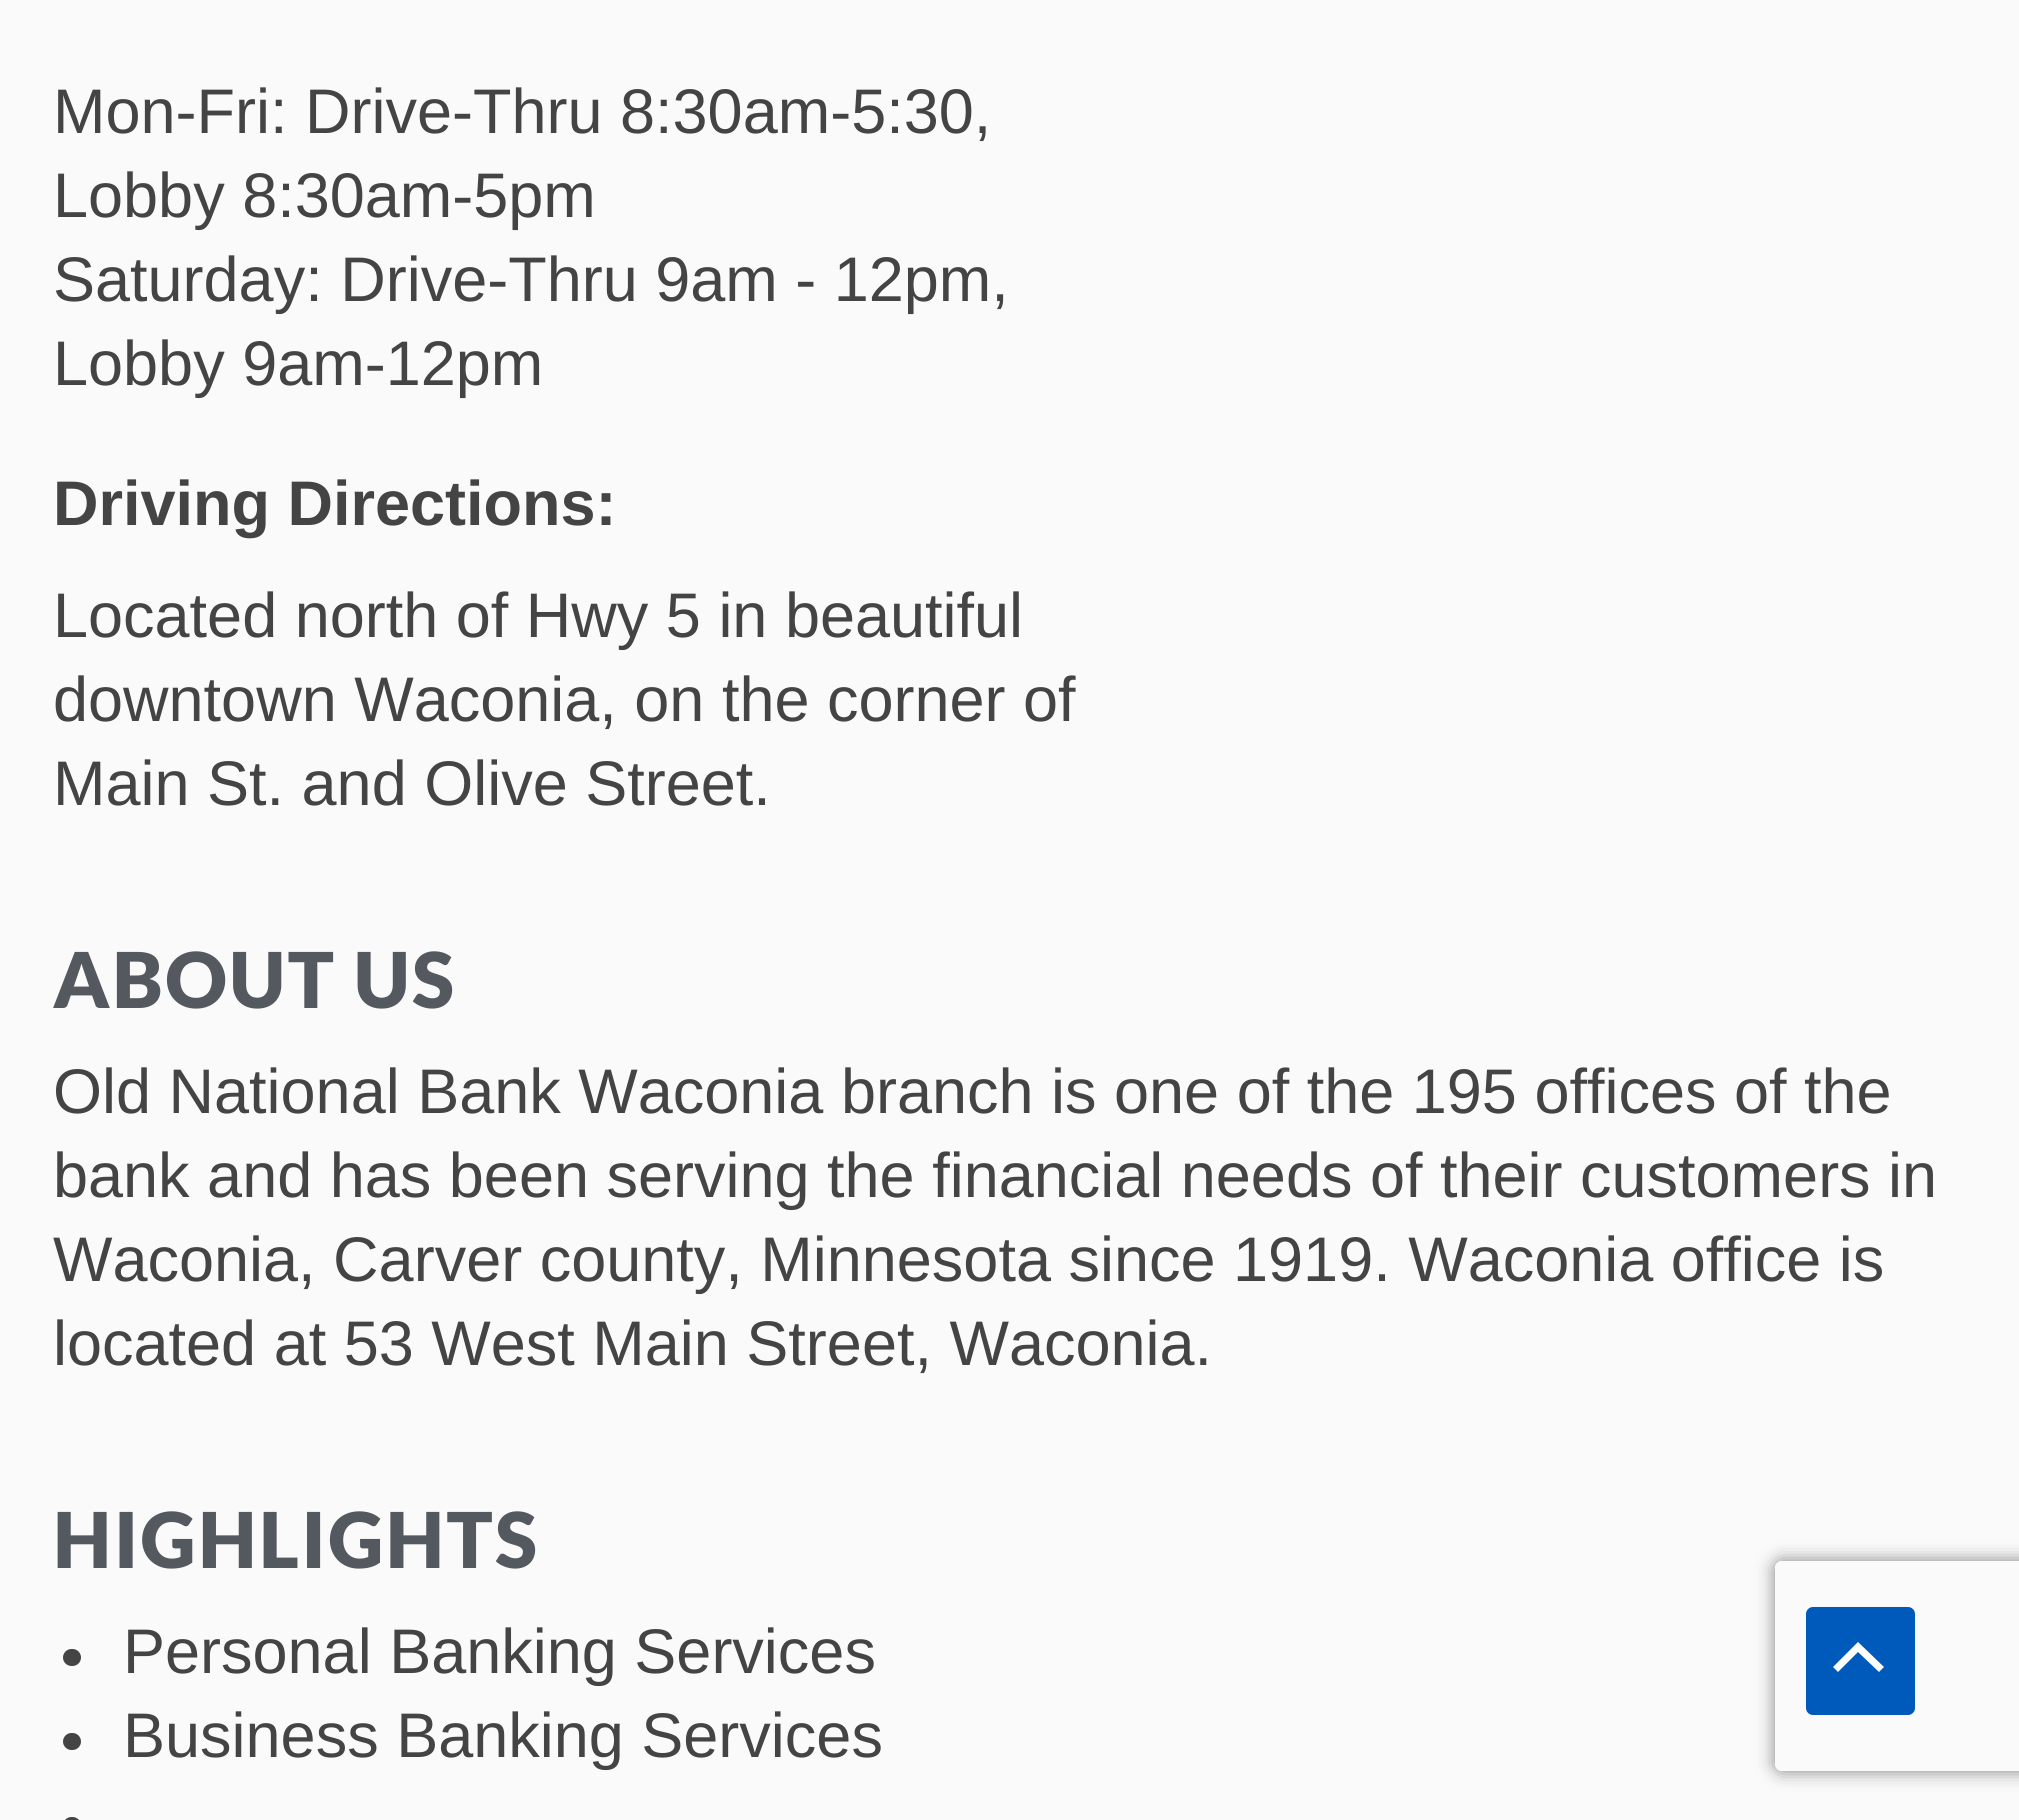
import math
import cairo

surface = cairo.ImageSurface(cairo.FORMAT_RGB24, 2019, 1820)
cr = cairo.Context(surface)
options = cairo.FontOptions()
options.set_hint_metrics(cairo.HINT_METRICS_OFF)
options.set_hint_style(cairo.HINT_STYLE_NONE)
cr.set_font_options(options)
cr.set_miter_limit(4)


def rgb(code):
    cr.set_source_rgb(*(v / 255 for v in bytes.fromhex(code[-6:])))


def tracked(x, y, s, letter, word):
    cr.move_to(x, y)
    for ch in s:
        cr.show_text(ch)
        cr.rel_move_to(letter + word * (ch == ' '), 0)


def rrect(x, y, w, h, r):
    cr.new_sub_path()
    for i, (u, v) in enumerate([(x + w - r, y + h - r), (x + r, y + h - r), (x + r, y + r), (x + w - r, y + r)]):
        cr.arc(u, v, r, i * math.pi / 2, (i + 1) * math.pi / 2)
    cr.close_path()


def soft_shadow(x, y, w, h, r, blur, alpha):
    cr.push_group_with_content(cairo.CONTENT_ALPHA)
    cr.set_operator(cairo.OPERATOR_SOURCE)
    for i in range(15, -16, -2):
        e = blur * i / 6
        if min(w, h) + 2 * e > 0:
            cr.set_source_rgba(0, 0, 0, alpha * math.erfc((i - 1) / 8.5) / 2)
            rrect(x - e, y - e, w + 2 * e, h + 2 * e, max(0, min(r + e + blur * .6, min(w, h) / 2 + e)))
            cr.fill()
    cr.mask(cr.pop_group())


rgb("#fafafa")
cr.paint()
rgb("#444444")
rrect(63, 1649, 18, 17, 8.5)
cr.fill()
rrect(63, 1733, 18, 17, 8.5)
cr.fill()
rrect(63, 1817, 18, 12, 8.5)
cr.fill()
cr.save()
cr.set_fill_rule(cairo.FILL_RULE_EVEN_ODD)
cr.new_path()
cr.move_to(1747, 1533)
cr.line_to(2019, 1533)
cr.line_to(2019, 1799)
cr.line_to(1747, 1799)
cr.close_path()
cr.move_to(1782, 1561)
cr.line_to(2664, 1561)
cr.curve_to(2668, 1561, 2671, 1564, 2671, 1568)
cr.line_to(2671, 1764)
cr.curve_to(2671, 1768, 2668, 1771, 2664, 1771)
cr.line_to(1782, 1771)
cr.curve_to(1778, 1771, 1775, 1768, 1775, 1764)
cr.line_to(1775, 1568)
cr.curve_to(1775, 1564, 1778, 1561, 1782, 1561)
cr.close_path()
cr.clip()
rgb("#808080")
soft_shadow(1775, 1561, 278, 210, 7, 9, 1)
cr.restore()
rgb("#005abb")
rrect(1806, 1607, 109, 108, 7)
cr.fill()
rgb("#ffffff")
cr.new_path()
cr.move_to(1884, 1667)
cr.line_to(1858, 1642)
cr.line_to(1833, 1667)
cr.line_to(1838, 1672)
cr.line_to(1858, 1652)
cr.line_to(1879, 1672)
cr.close_path()
cr.fill()
cr.select_font_face("Liberation Sans")
cr.set_font_size(63)
rgb("#444444")
for x, y, s in [
    (53, 133, "Mon-Fri: Drive-Thru 8:30am-5:30,"),
    (53, 217, "Lobby 8:30am-5pm"),
    (53, 301, "Saturday: Drive-Thru 9am - 12pm,"),
    (53, 385, "Lobby 9am-12pm"),
]:
    cr.move_to(x, y)
    cr.show_text(s)
cr.select_font_face("Liberation Sans", cairo.FONT_SLANT_NORMAL, cairo.FONT_WEIGHT_BOLD)
cr.move_to(53, 525)
cr.show_text("Driving Directions:")
cr.select_font_face("Liberation Sans")
for x, y, s in [
    (53, 637, "Located north of Hwy 5 in beautiful"),
    (53, 721, "downtown Waconia, on the corner of"),
    (53, 805, "Main St. and Olive Street."),
]:
    cr.move_to(x, y)
    cr.show_text(s)
cr.select_font_face("Lato Black")
cr.set_font_size(77)
rgb("#54595f")
tracked(53, 1008, "ABOUT US", 2.5, 0)
cr.select_font_face("Liberation Sans")
cr.set_font_size(63)
rgb("#444444")
for x, y, s in [
    (53, 1113, "Old National Bank Waconia branch is one of the 195 offices of the"),
    (53, 1197, "bank and has been serving the financial needs of their customers in"),
    (53, 1281, "Waconia, Carver county, Minnesota since 1919. Waconia office is"),
    (53, 1365, "located at 53 West Main Street, Waconia."),
]:
    cr.move_to(x, y)
    cr.show_text(s)
cr.select_font_face("Lato Black")
cr.set_font_size(77)
rgb("#54595f")
tracked(53, 1568, "HIGHLIGHTS", 2.5, 0)
cr.select_font_face("Liberation Sans")
cr.set_font_size(63)
rgb("#444444")
cr.move_to(123, 1673)
cr.show_text("Personal Banking Services")
cr.move_to(123, 1757)
cr.show_text("Business Banking Services")
surface.write_to_png("page.png")
